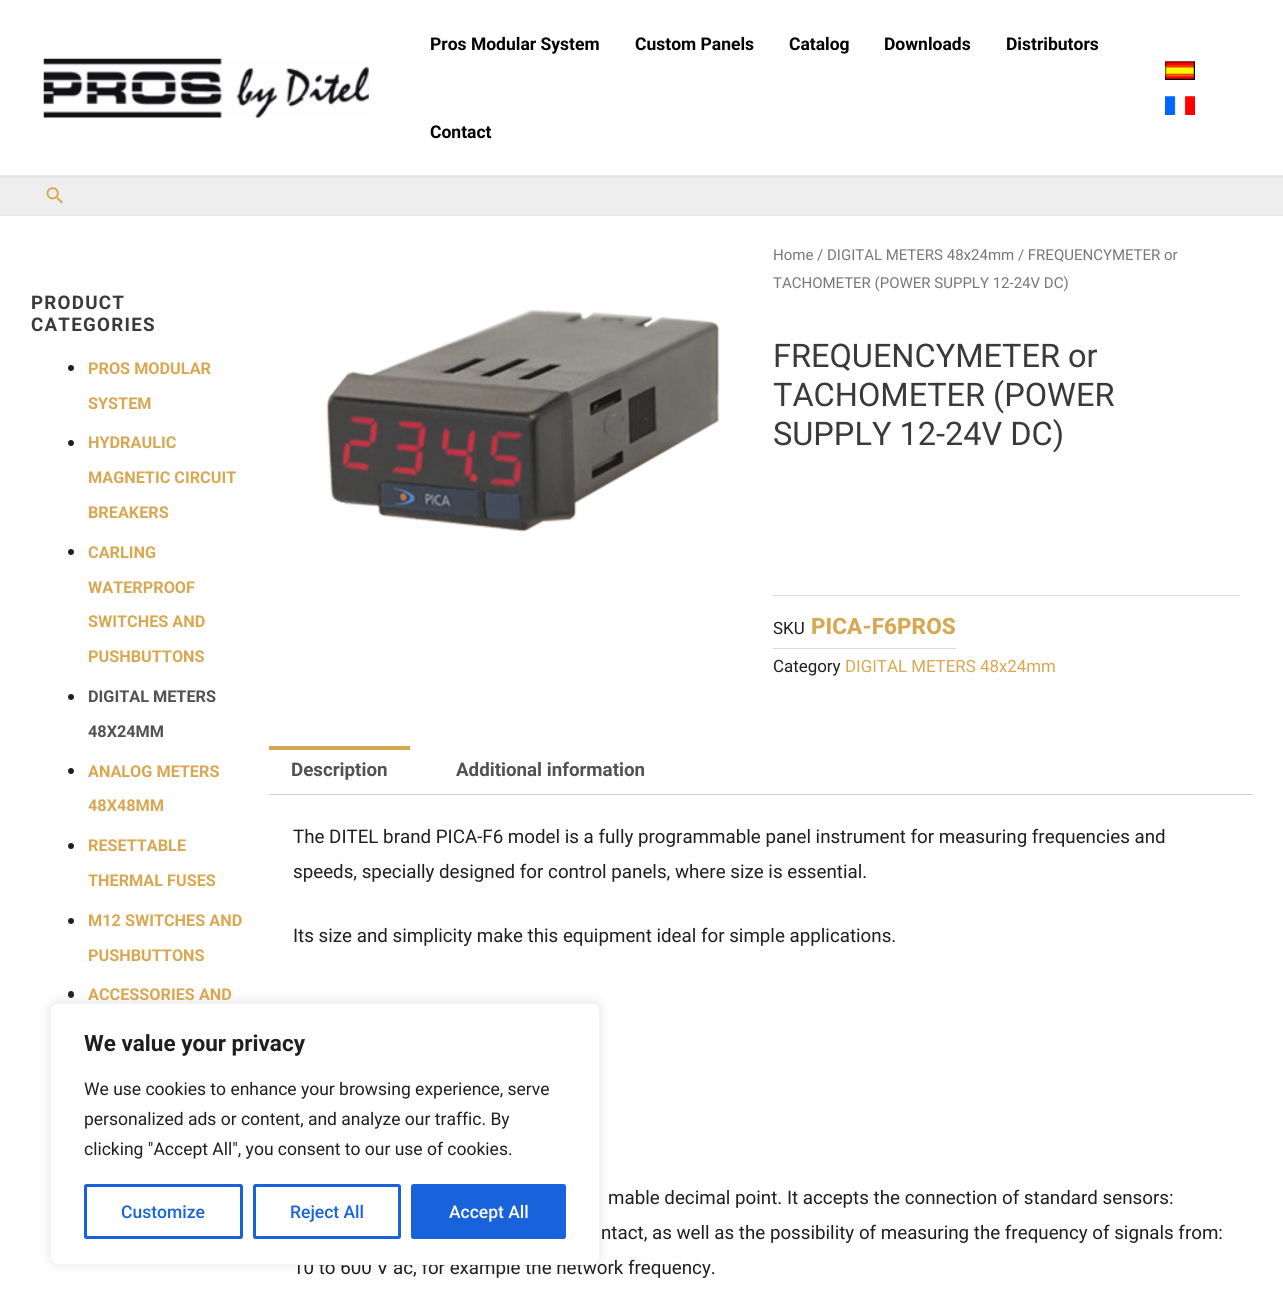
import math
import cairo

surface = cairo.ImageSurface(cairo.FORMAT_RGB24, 1283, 1315)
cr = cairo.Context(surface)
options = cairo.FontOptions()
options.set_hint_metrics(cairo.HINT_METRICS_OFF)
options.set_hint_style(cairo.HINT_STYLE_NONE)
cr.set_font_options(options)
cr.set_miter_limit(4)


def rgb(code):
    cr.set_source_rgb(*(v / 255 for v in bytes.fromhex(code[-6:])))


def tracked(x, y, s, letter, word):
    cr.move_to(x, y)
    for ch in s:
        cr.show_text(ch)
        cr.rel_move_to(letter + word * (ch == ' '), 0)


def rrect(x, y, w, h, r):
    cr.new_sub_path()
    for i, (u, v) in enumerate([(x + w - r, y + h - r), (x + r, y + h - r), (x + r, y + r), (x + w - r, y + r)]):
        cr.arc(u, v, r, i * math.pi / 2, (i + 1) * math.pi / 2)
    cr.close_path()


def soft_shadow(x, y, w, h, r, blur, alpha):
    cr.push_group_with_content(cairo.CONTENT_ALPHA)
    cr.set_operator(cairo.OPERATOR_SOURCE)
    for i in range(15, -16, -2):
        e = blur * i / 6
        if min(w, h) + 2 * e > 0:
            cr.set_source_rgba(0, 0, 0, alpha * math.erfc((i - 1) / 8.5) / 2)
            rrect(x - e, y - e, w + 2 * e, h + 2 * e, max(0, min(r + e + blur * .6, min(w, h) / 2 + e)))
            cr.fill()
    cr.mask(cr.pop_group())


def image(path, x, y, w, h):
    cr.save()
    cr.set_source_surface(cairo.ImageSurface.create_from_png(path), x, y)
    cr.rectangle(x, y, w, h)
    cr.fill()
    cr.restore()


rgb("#ffffff")
cr.paint()
rgb("#e5e5e5")
cr.rectangle(0, 175, 1283, 3)
cr.fill()
image("img/1.png", 43, 58, 326, 60)
image("img/2.png", 1165, 61, 30, 19)
image("img/3.png", 1165, 96, 30, 19)
rgb("#eeeeee")
cr.rectangle(0, 178, 1283, 37)
cr.fill()
rgb("#e5e5e5")
cr.rectangle(0, 215, 1283, 1)
cr.fill()
image("img/4.png", 46, 187, 17, 17)
rgb("#1f1f1f")
cr.arc(71, 368, 3, 0, 2 * math.pi)
cr.fill()
cr.arc(71, 443, 3, 0, 2 * math.pi)
cr.fill()
cr.arc(71, 552, 3, 0, 2 * math.pi)
cr.fill()
cr.arc(71, 697, 3, 0, 2 * math.pi)
cr.fill()
cr.arc(71, 771, 3, 0, 2 * math.pi)
cr.fill()
cr.arc(71, 846, 3, 0, 2 * math.pi)
cr.fill()
cr.arc(71, 921, 3, 0, 2 * math.pi)
cr.fill()
rrect(68, 991, 6, 7, 3)
cr.fill()
image("img/5.png", 326, 309, 394, 223)
for x, y, w, h, color in [
    (773, 595, 467, 1, "#dddddd"),
    (773, 648, 183, 1, "#dddddd"),
    (269, 746, 141, 4, "#d8a752"),
    (269, 794, 984, 1, "#d3ced2"),
]:
    rgb(color)
    cr.rectangle(x, y, w, h)
    cr.fill()
rgb("#acabab")
soft_shadow(50, 1001, 550, 263, 8, 6, 0.3)
cr.select_font_face("Roboto", cairo.FONT_SLANT_NORMAL, cairo.FONT_WEIGHT_BOLD)
cr.set_font_size(17.5)
rgb("#000000")
for x, y, s in [
    (430, 50, "Pros Modular System"),
    (635, 50, "Custom Panels"),
    (789, 50, "Catalog"),
    (884, 50, "Downloads"),
    (1006, 50, "Distributors"),
    (430, 138, "Contact"),
]:
    cr.move_to(x, y)
    cr.show_text(s)
cr.set_font_size(18.75)
rgb("#3a3a3a")
tracked(31, 309, "PRODUCT", 1.25, 0)
tracked(31, 331, "CATEGORIES", 1.25, 0)
cr.set_font_size(16.25)
rgb("#d8a752")
for x, y, s in [
    (88, 374, "PROS MODULAR"),
    (88, 409, "SYSTEM"),
    (88, 448, "HYDRAULIC"),
    (88, 483, "MAGNETIC CIRCUIT"),
    (88, 518, "BREAKERS"),
    (88, 558, "CARLING"),
    (88, 593, "WATERPROOF"),
    (88, 627, "SWITCHES AND"),
    (88, 662, "PUSHBUTTONS"),
]:
    cr.move_to(x, y)
    cr.show_text(s)
rgb("#525252")
cr.move_to(88, 702)
cr.show_text("DIGITAL METERS")
cr.move_to(88, 737)
cr.show_text("48X24MM")
rgb("#d8a752")
for x, y, s in [
    (88, 777, "ANALOG METERS"),
    (88, 811, "48X48MM"),
    (88, 851, "RESETTABLE"),
    (88, 886, "THERMAL FUSES"),
    (88, 926, "M12 SWITCHES AND"),
    (88, 961, "PUSHBUTTONS"),
    (88, 1000, "ACCESSORIES AND"),
]:
    cr.move_to(x, y)
    cr.show_text(s)
cr.select_font_face("Roboto")
cr.set_font_size(15)
rgb("#777777")
cr.move_to(773, 260)
cr.show_text("Home / DIGITAL METERS 48x24mm / FREQUENCYMETER or")
cr.move_to(773, 288)
cr.show_text("TACHOMETER (POWER SUPPLY 12-24V DC)")
cr.set_font_size(32.5)
rgb("#3a3a3a")
for x, y, s in [
    (773, 367, "FREQUENCYMETER or"),
    (773, 406, "TACHOMETER (POWER"),
    (773, 445, "SUPPLY 12-24V DC)"),
]:
    cr.move_to(x, y)
    cr.show_text(s)
cr.set_font_size(16.9)
rgb("#1f1f1f")
cr.move_to(773, 634)
cr.show_text("SKU")
cr.select_font_face("Roboto ExtraBold")
cr.set_font_size(22.5)
rgb("#d8a752")
cr.move_to(811, 634)
cr.show_text("PICA-F6PROS")
cr.select_font_face("Roboto")
cr.set_font_size(16.9)
rgb("#1f1f1f")
cr.move_to(773, 672)
cr.show_text("Category")
rgb("#d8a752")
cr.move_to(845, 672)
cr.show_text("DIGITAL METERS 48x24mm")
cr.select_font_face("Roboto", cairo.FONT_SLANT_NORMAL, cairo.FONT_WEIGHT_BOLD)
cr.set_font_size(18.75)
rgb("#525252")
cr.move_to(291, 776)
cr.show_text("Description")
cr.move_to(456, 776)
cr.show_text("Additional information")
cr.select_font_face("Roboto")
rgb("#1f1f1f")
for x, y, s in [
    (293, 843, "The DITEL brand PICA-F6 model is a fully programmable panel instrument for measuring frequencies and"),
    (293, 878, "speeds, specially designed for control panels, where size is essential."),
    (293, 942, "Its size and simplicity make this equipment ideal for simple applications."),
    (608, 1204, "mable decimal point. It accepts the connection of standard sensors:"),
    (601, 1239, "ntact, as well as the possibility of measuring the frequency of signals from:"),
    (293, 1274, "10 to 600 V ac, for example the network frequency."),
]:
    cr.move_to(x, y)
    cr.show_text(s)
rgb("#ffffff")
rrect(50.5, 1003.5, 549, 261, 7.5)
cr.fill_preserve()
rgb("#f4f4f4")
cr.set_line_width(1)
cr.stroke()
cr.select_font_face("Roboto", cairo.FONT_SLANT_NORMAL, cairo.FONT_WEIGHT_BOLD)
cr.set_font_size(22.5)
rgb("#1f1f1f")
cr.move_to(84, 1051)
cr.show_text("We value your privacy")
cr.select_font_face("Roboto")
cr.set_font_size(17.5)
for x, y, s in [
    (84, 1095, "We use cookies to enhance your browsing experience, serve"),
    (84, 1125, "personalized ads or content, and analyze our traffic. By"),
    (84, 1155, "clicking \"Accept All\", you consent to our use of cookies."),
]:
    cr.move_to(x, y)
    cr.show_text(s)
rrect(85.5, 1185.5, 156, 52, 1)
rgb("#1863dc")
cr.set_line_width(3)
cr.stroke()
cr.select_font_face("Roboto Medium")
cr.move_to(121, 1218)
cr.show_text("Customize")
rrect(254.5, 1185.5, 145, 52, 1)
cr.stroke()
cr.move_to(290, 1218)
cr.show_text("Reject All")
rrect(412.5, 1185.5, 152, 52, 1)
cr.fill_preserve()
cr.stroke()
rgb("#ffffff")
cr.move_to(449, 1218)
cr.show_text("Accept All")
surface.write_to_png("page.png")
